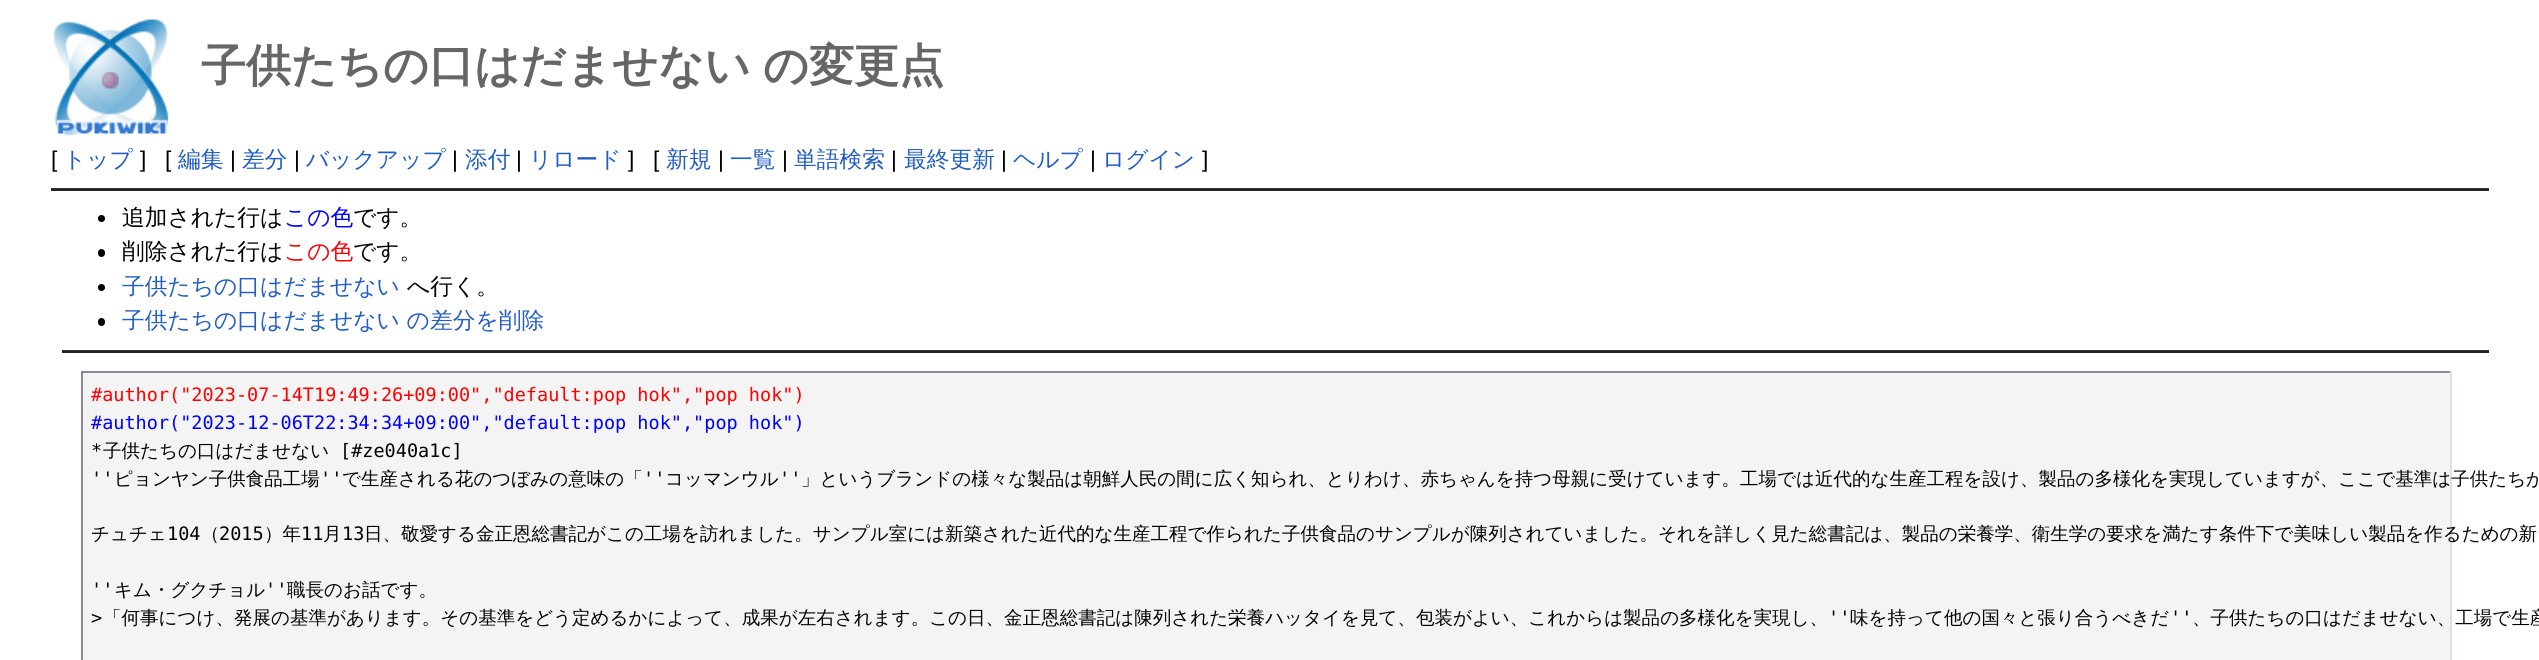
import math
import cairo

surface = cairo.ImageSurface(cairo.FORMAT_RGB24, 2539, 660)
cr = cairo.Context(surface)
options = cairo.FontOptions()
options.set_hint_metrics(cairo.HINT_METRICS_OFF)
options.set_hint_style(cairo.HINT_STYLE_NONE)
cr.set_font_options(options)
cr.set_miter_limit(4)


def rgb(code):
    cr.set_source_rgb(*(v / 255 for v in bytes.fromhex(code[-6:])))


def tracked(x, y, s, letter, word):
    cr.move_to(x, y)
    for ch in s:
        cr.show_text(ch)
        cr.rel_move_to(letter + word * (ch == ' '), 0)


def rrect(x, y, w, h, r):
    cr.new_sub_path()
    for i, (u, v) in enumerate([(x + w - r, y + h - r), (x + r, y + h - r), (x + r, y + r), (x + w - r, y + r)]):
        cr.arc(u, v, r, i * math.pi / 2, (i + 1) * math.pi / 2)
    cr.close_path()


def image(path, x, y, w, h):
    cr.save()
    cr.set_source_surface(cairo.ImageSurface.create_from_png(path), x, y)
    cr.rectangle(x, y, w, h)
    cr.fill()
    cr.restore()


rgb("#ffffff")
cr.paint()
image("img/1.png", 53, 19, 116, 117)
rgb("#333333")
cr.rectangle(51, 188, 2438, 1)
cr.fill()
rgb("#222222")
cr.rectangle(51, 189, 2438, 2)
cr.fill()
rgb("#000000")
cr.arc(101.5, 218.5, 3.5, 0, 2 * math.pi)
cr.fill()
rrect(98, 249, 7, 8, 3.5)
cr.fill()
cr.arc(101.5, 287.5, 3.5, 0, 2 * math.pi)
cr.fill()
rrect(98, 318, 7, 8, 3.5)
cr.fill()
for x, y, w, h, color in [
    (62, 350, 2427, 1, "#333333"),
    (62, 351, 2427, 2, "#222222"),
    (83, 373, 2367, 287, "#f4f4f4"),
    (81, 371, 2370, 2, "#888899"),
    (2450, 371, 2, 289, "#ddddee"),
    (81, 371, 2, 289, "#888899"),
]:
    rgb(color)
    cr.rectangle(x, y, w, h)
    cr.fill()
cr.select_font_face("WenQuanYi Zen Hei", cairo.FONT_SLANT_NORMAL, cairo.FONT_WEIGHT_BOLD)
cr.set_font_size(45)
rgb("#666666")
tracked(201, 81, "子供たちの口はだませない の変更点", 0, -1)
cr.select_font_face("Liberation Sans")
cr.set_font_size(22.75)
rgb("#000000")
cr.move_to(51, 167)
cr.show_text("[")
cr.select_font_face("WenQuanYi Zen Hei Medium")
rgb("#215dc6")
cr.move_to(63, 167)
cr.show_text("トップ")
cr.select_font_face("Liberation Sans")
rgb("#000000")
cr.move_to(140, 167)
cr.show_text("]")
cr.move_to(165, 167)
cr.show_text("[")
cr.select_font_face("WenQuanYi Zen Hei Medium")
rgb("#215dc6")
cr.move_to(178, 167)
cr.show_text("編集")
cr.select_font_face("Liberation Sans")
rgb("#000000")
cr.move_to(230, 167)
cr.show_text("|")
cr.select_font_face("WenQuanYi Zen Hei Medium")
rgb("#215dc6")
cr.move_to(242, 167)
cr.show_text("差分")
cr.select_font_face("Liberation Sans")
rgb("#000000")
cr.move_to(294, 167)
cr.show_text("|")
cr.select_font_face("WenQuanYi Zen Hei Medium")
rgb("#215dc6")
cr.move_to(306, 167)
cr.show_text("バックアップ")
cr.select_font_face("Liberation Sans")
rgb("#000000")
cr.move_to(452, 167)
cr.show_text("|")
cr.select_font_face("WenQuanYi Zen Hei Medium")
rgb("#215dc6")
cr.move_to(465, 167)
cr.show_text("添付")
cr.select_font_face("Liberation Sans")
rgb("#000000")
cr.move_to(516, 167)
cr.show_text("|")
cr.select_font_face("WenQuanYi Zen Hei Medium")
rgb("#215dc6")
cr.move_to(529, 167)
cr.show_text("リロード")
cr.select_font_face("Liberation Sans")
rgb("#000000")
cr.move_to(628, 167)
cr.show_text("]")
cr.move_to(653, 167)
cr.show_text("[")
cr.select_font_face("WenQuanYi Zen Hei Medium")
rgb("#215dc6")
cr.move_to(666, 167)
cr.show_text("新規")
cr.select_font_face("Liberation Sans")
rgb("#000000")
cr.move_to(718, 167)
cr.show_text("|")
cr.select_font_face("WenQuanYi Zen Hei Medium")
rgb("#215dc6")
cr.move_to(730, 167)
cr.show_text("一覧")
cr.select_font_face("Liberation Sans")
rgb("#000000")
cr.move_to(782, 167)
cr.show_text("|")
cr.select_font_face("WenQuanYi Zen Hei Medium")
rgb("#215dc6")
cr.move_to(794, 167)
cr.show_text("単語検索")
cr.select_font_face("Liberation Sans")
rgb("#000000")
cr.move_to(891, 167)
cr.show_text("|")
cr.select_font_face("WenQuanYi Zen Hei Medium")
rgb("#215dc6")
cr.move_to(904, 167)
cr.show_text("最終更新")
cr.select_font_face("Liberation Sans")
rgb("#000000")
cr.move_to(1001, 167)
cr.show_text("|")
cr.select_font_face("WenQuanYi Zen Hei Medium")
rgb("#215dc6")
cr.move_to(1013, 167)
cr.show_text("ヘルプ")
cr.select_font_face("Liberation Sans")
rgb("#000000")
cr.move_to(1090, 167)
cr.show_text("|")
cr.select_font_face("WenQuanYi Zen Hei Medium")
rgb("#215dc6")
cr.move_to(1102, 167)
cr.show_text("ログイン")
cr.select_font_face("Liberation Sans")
rgb("#000000")
cr.move_to(1202, 167)
cr.show_text("]")
cr.select_font_face("WenQuanYi Zen Hei Medium")
cr.move_to(122, 225)
cr.show_text("追加された行は")
rgb("#0000ff")
cr.move_to(284, 225)
cr.show_text("この色")
rgb("#000000")
cr.move_to(353, 225)
cr.show_text("です。")
cr.move_to(122, 259)
cr.show_text("削除された行は")
rgb("#ff0000")
cr.move_to(284, 259)
cr.show_text("この色")
rgb("#000000")
cr.move_to(353, 259)
cr.show_text("です。")
rgb("#215dc6")
cr.move_to(122, 294)
cr.show_text("子供たちの口はだませない")
rgb("#000000")
cr.move_to(407, 294)
cr.show_text("へ行く。")
rgb("#215dc6")
cr.move_to(122, 328)
cr.show_text("子供たちの口はだませない の差分を削除")
cr.select_font_face("DejaVu Sans Mono")
cr.set_font_size(18.52)
rgb("#ff0000")
cr.move_to(91, 401)
cr.show_text("#author(\"2023-07-14T19:49:26+09:00\",\"default:pop hok\",\"pop hok\")")
rgb("#0000ff")
cr.move_to(91, 429)
cr.show_text("#author(\"2023-12-06T22:34:34+09:00\",\"default:pop hok\",\"pop hok\")")
rgb("#000000")
cr.move_to(91, 457)
cr.show_text("*")
cr.select_font_face("WenQuanYi Zen Hei Medium")
cr.move_to(103, 457)
cr.show_text("子供たちの口はだませない")
cr.select_font_face("DejaVu Sans Mono")
cr.move_to(340, 457)
cr.show_text("[#ze040a1c]")
cr.move_to(91, 485)
cr.show_text("''")
cr.select_font_face("WenQuanYi Zen Hei Medium")
cr.move_to(114, 485)
cr.show_text("ピョンヤン子供食品工場")
cr.select_font_face("DejaVu Sans Mono")
cr.move_to(320, 485)
cr.show_text("''")
cr.select_font_face("WenQuanYi Zen Hei Medium")
cr.move_to(342, 485)
cr.show_text("で生産される花のつぼみの意味の「")
cr.select_font_face("DejaVu Sans Mono")
cr.move_to(643, 485)
cr.show_text("''")
cr.select_font_face("WenQuanYi Zen Hei Medium")
cr.move_to(665, 485)
cr.show_text("コッマンウル")
cr.select_font_face("DejaVu Sans Mono")
cr.move_to(779, 485)
cr.show_text("''")
cr.select_font_face("WenQuanYi Zen Hei Medium")
cr.move_to(801, 485)
cr.show_text("」というブランドの様々な製品は朝鮮人民の間に広く知られ、とりわけ、赤ちゃんを持つ母親に受けています。工場では近代的な生産工程を設け、製品の多様化を実現していますが、ここで基準は子供たちが")
cr.move_to(91, 540)
cr.show_text("チュチェ")
cr.select_font_face("DejaVu Sans Mono")
cr.move_to(167, 540)
cr.show_text("104")
cr.select_font_face("WenQuanYi Zen Hei Medium")
cr.move_to(201, 540)
cr.show_text("（")
cr.select_font_face("DejaVu Sans Mono")
cr.move_to(219, 540)
cr.show_text("2015")
cr.select_font_face("WenQuanYi Zen Hei Medium")
cr.move_to(264, 540)
cr.show_text("）年")
cr.select_font_face("DejaVu Sans Mono")
cr.move_to(301, 540)
cr.show_text("11")
cr.select_font_face("WenQuanYi Zen Hei Medium")
cr.move_to(323, 540)
cr.show_text("月")
cr.select_font_face("DejaVu Sans Mono")
cr.move_to(342, 540)
cr.show_text("13")
cr.select_font_face("WenQuanYi Zen Hei Medium")
cr.move_to(364, 540)
cr.show_text("日、敬愛する金正恩総書記がこの工場を訪れました。サンプル室には新築された近代的な生産工程で作られた子供食品のサンプルが陳列されていました。それを詳しく見た総書記は、製品の栄養学、衛生学の要求を満たす条件下で美味しい製品を作るための新")
cr.select_font_face("DejaVu Sans Mono")
cr.move_to(91, 596)
cr.show_text("''")
cr.select_font_face("WenQuanYi Zen Hei Medium")
cr.move_to(114, 596)
cr.show_text("キム・グクチョル")
cr.select_font_face("DejaVu Sans Mono")
cr.move_to(265, 596)
cr.show_text("''")
cr.select_font_face("WenQuanYi Zen Hei Medium")
cr.move_to(287, 596)
cr.show_text("職長のお話です。")
cr.select_font_face("DejaVu Sans Mono")
cr.move_to(91, 624)
cr.show_text(">")
cr.select_font_face("WenQuanYi Zen Hei Medium")
cr.move_to(103, 624)
cr.show_text("「何事につけ、発展の基準があります。その基準をどう定めるかによって、成果が左右されます。この日、金正恩総書記は陳列された栄養ハッタイを見て、包装がよい、これからは製品の多様化を実現し、")
cr.select_font_face("DejaVu Sans Mono")
cr.move_to(1828, 624)
cr.show_text("''")
cr.select_font_face("WenQuanYi Zen Hei Medium")
cr.move_to(1850, 624)
cr.show_text("味を持って他の国々と張り合うべきだ")
cr.select_font_face("DejaVu Sans Mono")
cr.move_to(2170, 624)
cr.show_text("''")
cr.select_font_face("WenQuanYi Zen Hei Medium")
cr.move_to(2192, 624)
cr.show_text("、子供たちの口はだませない、工場で生産")
surface.write_to_png("page.png")
